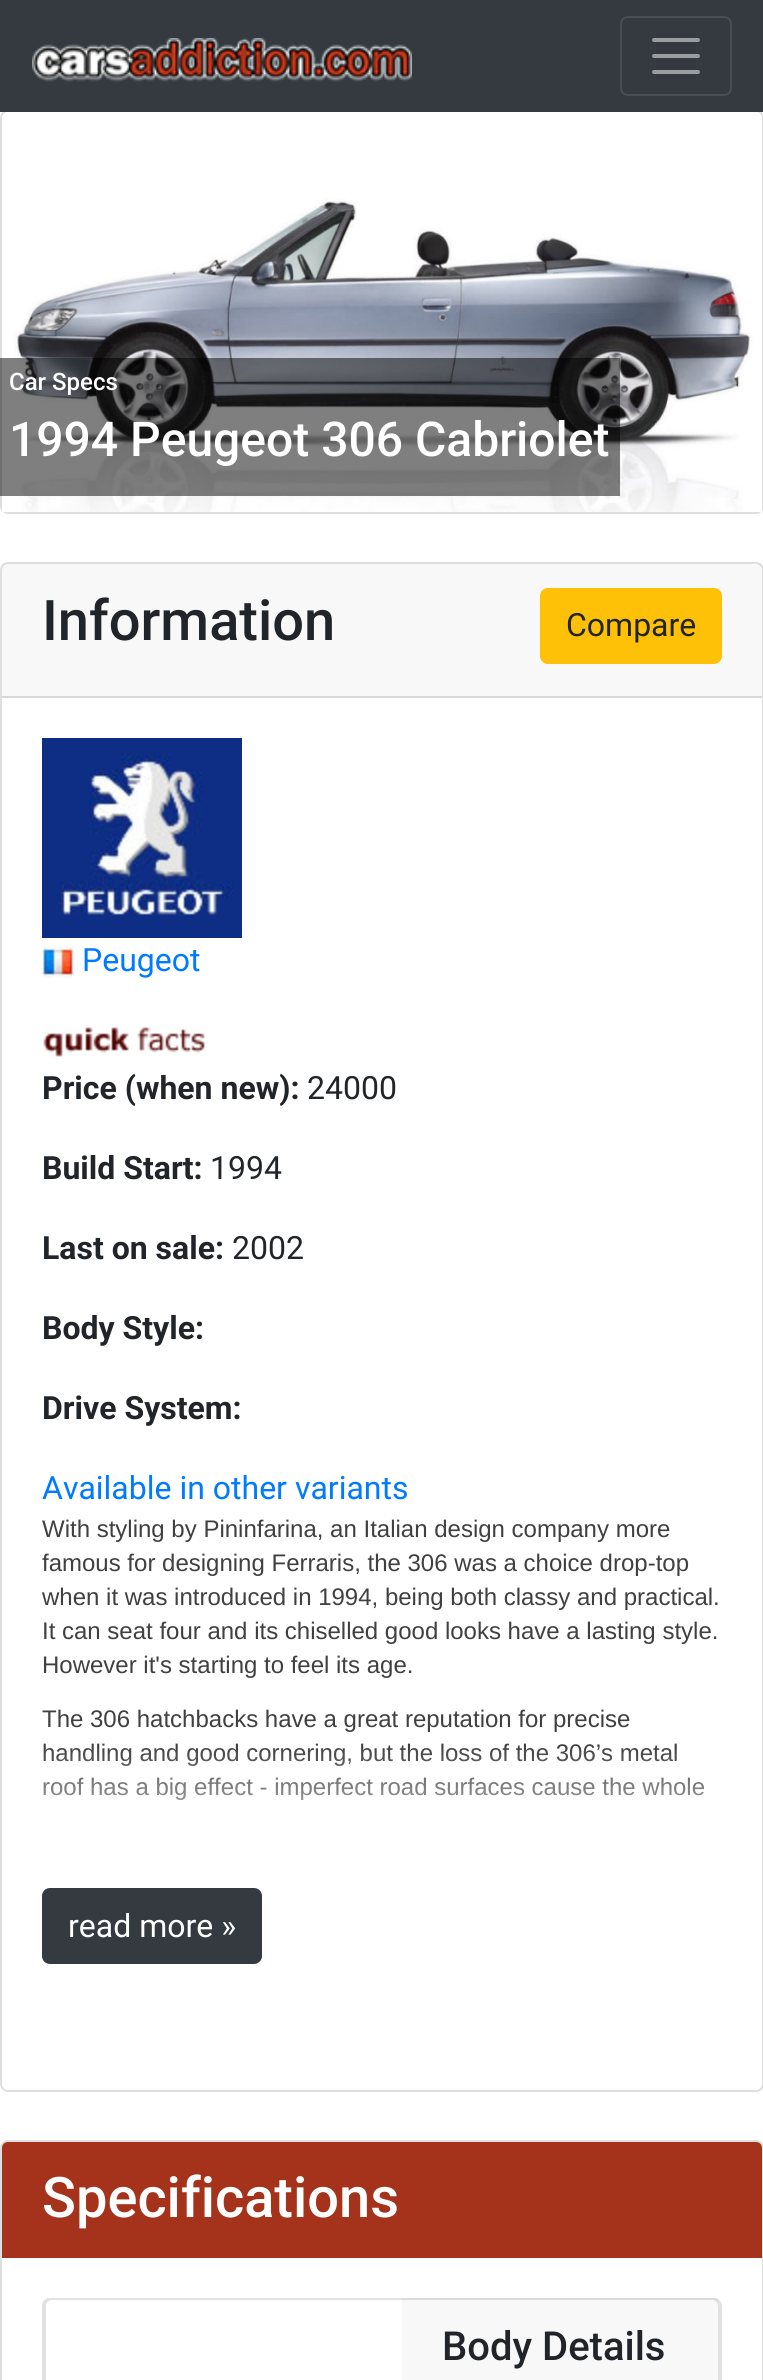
import math
import cairo

surface = cairo.ImageSurface(cairo.FORMAT_RGB24, 763, 2380)
cr = cairo.Context(surface)
options = cairo.FontOptions()
options.set_hint_metrics(cairo.HINT_METRICS_OFF)
options.set_hint_style(cairo.HINT_STYLE_NONE)
cr.set_font_options(options)
cr.set_miter_limit(4)


def rgb(code):
    cr.set_source_rgb(*(v / 255 for v in bytes.fromhex(code[-6:])))


def rrect(x, y, w, h, r):
    cr.new_sub_path()
    for i, (u, v) in enumerate([(x + w - r, y + h - r), (x + r, y + h - r), (x + r, y + r), (x + w - r, y + r)]):
        cr.arc(u, v, r, i * math.pi / 2, (i + 1) * math.pi / 2)
    cr.close_path()


def image(path, x, y, w, h):
    cr.save()
    cr.set_source_surface(cairo.ImageSurface.create_from_png(path), x, y)
    cr.rectangle(x, y, w, h)
    cr.fill()
    cr.restore()


rgb("#ffffff")
cr.paint()
rrect(1, 111, 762, 402, 7)
rgb("#dfdfdf")
cr.stroke()
rgb("#343a40")
cr.rectangle(0, 0, 763, 112)
cr.fill()
image("img/1.png", 32, 38, 380, 44)
rrect(621, 17, 110, 78, 7)
rgb("#484e53")
cr.stroke()
cr.new_path()
cr.move_to(654, 40)
cr.line_to(698, 40)
cr.move_to(654, 56)
cr.line_to(698, 56)
cr.move_to(654, 72)
cr.line_to(698, 72)
rgb("#9a9da0")
cr.set_line_width(4)
cr.set_line_cap(cairo.LINE_CAP_ROUND)
cr.stroke()
image("img/2.png", 2, 112, 760, 400)
cr.set_source_rgba(0, 0, 0, 0.5)
cr.rectangle(0, 358, 620, 138)
cr.fill()
rrect(1, 563, 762, 1528, 7)
rgb("#dfdfdf")
cr.set_line_width(2)
cr.set_line_cap(cairo.LINE_CAP_BUTT)
cr.stroke()
cr.set_source_rgba(0, 0, 0, 0.03)
cr.rectangle(2, 564, 760, 132)
cr.fill()
rgb("#d8d8d8")
cr.rectangle(2, 696, 760, 2)
cr.fill()
rgb("#ffc107")
rrect(541, 589, 180, 74, 7)
cr.fill_preserve()
cr.stroke()
image("img/3.png", 42, 738, 200, 200)
image("img/4.png", 42, 946, 32, 32)
image("img/5.png", 43, 1026, 162, 31)
rgb("#343a40")
rrect(43, 1889, 218, 74, 7)
cr.fill_preserve()
cr.stroke()
rrect(1, 2141, 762, 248, 7)
rgb("#dfdfdf")
cr.stroke()
rgb("#a5331b")
cr.new_path()
cr.move_to(8, 2142)
cr.line_to(756, 2142)
cr.curve_to(759.5, 2142, 762, 2144.5, 762, 2148)
cr.line_to(762, 2258)
cr.line_to(2, 2258)
cr.line_to(2, 2148)
cr.curve_to(2, 2144.5, 4.5, 2142, 8, 2142)
cr.close_path()
cr.fill()
rrect(43, 2299, 322, 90, 7)
rgb("#dfdfdf")
cr.stroke()
rgb("#ffffff")
rrect(42, 2298, 680, 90, 8)
cr.fill()
rrect(43, 2299, 678, 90, 7)
cr.set_source_rgba(0, 0, 0, 0.12)
cr.stroke()
rgb("#ffffff")
rrect(44, 2298, 676, 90, 8)
cr.fill()
rrect(45, 2299, 674, 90, 7)
cr.set_source_rgba(0, 0, 0, 0.12)
cr.stroke()
cr.set_source_rgba(0, 0, 0, 0.03)
cr.rectangle(402, 2298, 316, 82)
cr.fill()
cr.select_font_face("Roboto Medium")
cr.set_font_size(24)
rgb("#ffffff")
cr.move_to(9, 390)
cr.show_text("Car Specs")
cr.set_font_size(48)
cr.move_to(9, 456)
cr.show_text("1994 Peugeot 306 Cabriolet")
cr.set_font_size(56)
rgb("#212529")
cr.move_to(42, 640)
cr.show_text("Information")
cr.select_font_face("Roboto")
cr.set_font_size(32)
cr.move_to(566, 636)
cr.show_text("Compare")
rgb("#007bff")
cr.move_to(82, 971)
cr.show_text("Peugeot")
cr.select_font_face("Roboto", cairo.FONT_SLANT_NORMAL, cairo.FONT_WEIGHT_BOLD)
rgb("#212529")
cr.move_to(42, 1099)
cr.show_text("Price (when new):")
cr.select_font_face("Roboto")
cr.move_to(307, 1099)
cr.show_text("24000")
cr.select_font_face("Roboto", cairo.FONT_SLANT_NORMAL, cairo.FONT_WEIGHT_BOLD)
cr.move_to(42, 1179)
cr.show_text("Build Start:")
cr.select_font_face("Roboto")
cr.move_to(210, 1179)
cr.show_text("1994")
cr.select_font_face("Roboto", cairo.FONT_SLANT_NORMAL, cairo.FONT_WEIGHT_BOLD)
cr.move_to(42, 1259)
cr.show_text("Last on sale:")
cr.select_font_face("Roboto")
cr.move_to(232, 1259)
cr.show_text("2002")
cr.select_font_face("Roboto", cairo.FONT_SLANT_NORMAL, cairo.FONT_WEIGHT_BOLD)
cr.move_to(42, 1339)
cr.show_text("Body Style:")
cr.move_to(42, 1419)
cr.show_text("Drive System:")
cr.select_font_face("Roboto")
rgb("#007bff")
cr.move_to(42, 1499)
cr.show_text("Available in other variants")
cr.select_font_face("Liberation Sans")
cr.set_font_size(24)
rgb("#404040")
for x, y, s in [
    (42, 1537, "With styling by Pininfarina, an Italian design company more"),
    (42, 1571, "famous for designing Ferraris, the 306 was a choice drop-top"),
    (42, 1605, "when it was introduced in 1994, being both classy and practical."),
    (42, 1639, "It can seat four and its chiselled good looks have a lasting style."),
    (42, 1673, "However it's starting to feel its age."),
    (42, 1727, "The 306 hatchbacks have a great reputation for precise"),
    (42, 1761, "handling and good cornering, but the loss of the 306’s metal"),
    (42, 1795, "roof has a big effect - imperfect road surfaces cause the whole"),
]:
    cr.move_to(x, y)
    cr.show_text(s)
gradient = cairo.LinearGradient(382, 1746, 382, 1874)
gradient.add_color_stop_rgba(0, 1, 1, 1, 0)
gradient.add_color_stop_rgba(1, 1, 1, 1, 1)
cr.set_source(gradient)
cr.rectangle(43, 1749, 661, 51)
cr.fill()
cr.select_font_face("Roboto")
cr.set_font_size(32)
rgb("#ffffff")
cr.move_to(68, 1937)
cr.show_text("read more »")
cr.select_font_face("Roboto Medium")
cr.set_font_size(56)
cr.move_to(42, 2217)
cr.show_text("Specifications")
cr.set_font_size(40)
rgb("#212529")
cr.move_to(442, 2360)
cr.show_text("Body Details")
surface.write_to_png("page.png")
